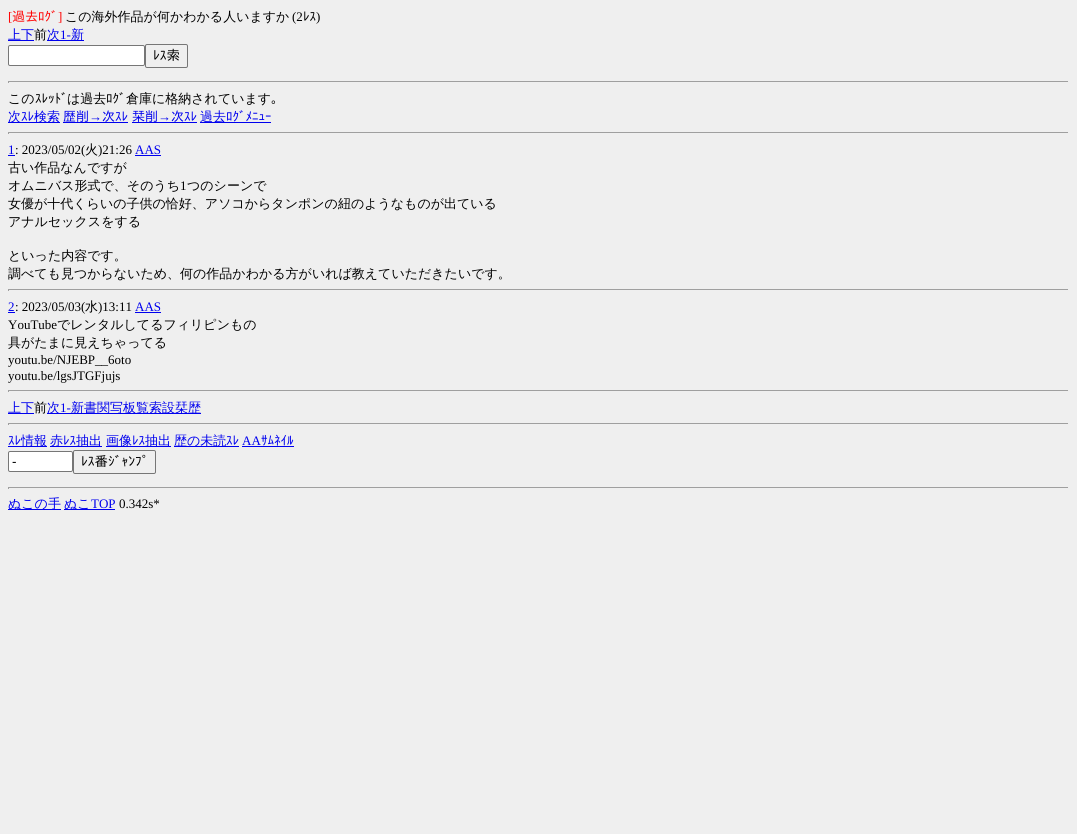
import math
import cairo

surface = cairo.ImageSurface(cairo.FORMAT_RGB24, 1077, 834)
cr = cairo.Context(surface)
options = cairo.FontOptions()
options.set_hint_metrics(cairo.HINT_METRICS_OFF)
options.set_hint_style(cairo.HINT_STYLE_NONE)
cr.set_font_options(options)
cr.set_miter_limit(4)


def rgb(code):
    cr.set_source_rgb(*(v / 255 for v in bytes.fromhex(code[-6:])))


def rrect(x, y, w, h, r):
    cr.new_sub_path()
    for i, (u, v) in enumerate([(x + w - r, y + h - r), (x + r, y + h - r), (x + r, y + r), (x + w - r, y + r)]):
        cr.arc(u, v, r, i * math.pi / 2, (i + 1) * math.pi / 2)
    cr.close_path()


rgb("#efefef")
cr.paint()
rgb("#0000ee")
cr.rectangle(8, 40, 26, 1)
cr.fill()
cr.rectangle(47, 40, 37, 1)
cr.fill()
rgb("#ffffff")
rrect(8.5, 45.5, 136, 20, 1.5)
cr.fill_preserve()
rgb("#767676")
cr.set_line_width(1)
cr.stroke()
rrect(145.5, 44.5, 42, 23, 1.5)
cr.stroke()
for x, y, w, h, color in [
    (8, 81, 1061, 1, "#9f9f9f"),
    (1068, 81, 1, 2, "#eeeeee"),
    (8, 81, 1, 2, "#9f9f9f"),
    (8, 122, 52, 1, "#0000ee"),
    (63, 122, 65, 1, "#0000ee"),
    (132, 122, 65, 1, "#0000ee"),
    (200, 122, 71, 1, "#0000ee"),
    (8, 132, 1061, 1, "#9f9f9f"),
    (1068, 132, 1, 2, "#eeeeee"),
    (8, 132, 1, 2, "#9f9f9f"),
    (8, 155, 7, 1, "#0000ee"),
    (135, 155, 26, 1, "#0000ee"),
    (8, 289, 1061, 1, "#9f9f9f"),
    (1068, 289, 1, 2, "#eeeeee"),
    (8, 289, 1, 2, "#9f9f9f"),
    (8, 312, 7, 1, "#0000ee"),
    (135, 312, 26, 1, "#0000ee"),
    (8, 390, 1061, 1, "#9f9f9f"),
    (1068, 390, 1, 2, "#eeeeee"),
    (8, 390, 1, 2, "#9f9f9f"),
    (8, 413, 26, 1, "#0000ee"),
    (47, 413, 154, 1, "#0000ee"),
    (8, 423, 1061, 1, "#9f9f9f"),
    (1068, 423, 1, 2, "#eeeeee"),
    (8, 423, 1, 2, "#9f9f9f"),
    (8, 446, 39, 1, "#0000ee"),
    (50, 446, 52, 1, "#0000ee"),
    (106, 446, 65, 1, "#0000ee"),
    (174, 446, 65, 1, "#0000ee"),
    (242, 446, 52, 1, "#0000ee"),
]:
    rgb(color)
    cr.rectangle(x, y, w, h)
    cr.fill()
rgb("#ffffff")
rrect(8.5, 451.5, 64, 20, 1.5)
cr.fill_preserve()
rgb("#767676")
cr.stroke()
rrect(73.5, 450.5, 82, 23, 1.5)
cr.stroke()
for x, y, w, h, color in [
    (8, 487, 1061, 1, "#9f9f9f"),
    (1068, 487, 1, 2, "#eeeeee"),
    (8, 487, 1, 2, "#9f9f9f"),
    (8, 509, 53, 1, "#0000ee"),
    (64, 509, 51, 1, "#0000ee"),
]:
    rgb(color)
    cr.rectangle(x, y, w, h)
    cr.fill()
cr.select_font_face("WenQuanYi Zen Hei Medium")
cr.set_font_size(13)
rgb("#000000")
cr.move_to(65, 21)
cr.show_text("この海外作品が何かわかる人いますか")
cr.select_font_face("Liberation Serif")
cr.move_to(292, 21)
cr.show_text("(2")
cr.select_font_face("IPAGothic")
cr.move_to(303, 21)
cr.show_text("ﾚｽ")
cr.select_font_face("Liberation Serif")
cr.move_to(316, 21)
cr.show_text(")")
cr.select_font_face("WenQuanYi Zen Hei Medium")
rgb("#0000ee")
cr.move_to(8, 39)
cr.show_text("上下")
rgb("#000000")
cr.move_to(34, 39)
cr.show_text("前")
rgb("#0000ee")
cr.move_to(47, 39)
cr.show_text("次")
cr.select_font_face("Liberation Serif")
cr.move_to(60, 39)
cr.show_text("1-")
cr.select_font_face("WenQuanYi Zen Hei Medium")
cr.move_to(71, 39)
cr.show_text("新")
cr.select_font_face("IPAGothic")
cr.set_font_size(13.5)
rgb("#000000")
cr.move_to(153, 60)
cr.show_text("ﾚｽ索")
cr.select_font_face("WenQuanYi Zen Hei Medium")
cr.set_font_size(13)
cr.move_to(8, 103)
cr.show_text("この")
cr.select_font_face("IPAGothic")
cr.move_to(35, 103)
cr.show_text("ｽﾚｯﾄﾞ")
cr.select_font_face("WenQuanYi Zen Hei Medium")
cr.move_to(67, 103)
cr.show_text("は過去")
cr.select_font_face("IPAGothic")
cr.move_to(106, 103)
cr.show_text("ﾛｸﾞ")
cr.select_font_face("WenQuanYi Zen Hei Medium")
cr.move_to(126, 103)
cr.show_text("倉庫に格納されています")
cr.select_font_face("IPAGothic")
cr.move_to(271, 103)
cr.show_text("｡")
cr.select_font_face("WenQuanYi Zen Hei Medium")
rgb("#0000ee")
cr.move_to(8, 121)
cr.show_text("次")
cr.select_font_face("IPAGothic")
cr.move_to(21, 121)
cr.show_text("ｽﾚ")
cr.select_font_face("WenQuanYi Zen Hei Medium")
cr.move_to(34, 121)
cr.show_text("検索")
cr.select_font_face("IPAGothic")
cr.move_to(63, 121)
cr.show_text("歴削")
cr.select_font_face("Liberation Serif")
cr.move_to(89, 121)
cr.show_text("→")
cr.select_font_face("IPAGothic")
cr.move_to(102, 121)
cr.show_text("次ｽﾚ")
cr.move_to(132, 121)
cr.show_text("栞削")
cr.select_font_face("Liberation Serif")
cr.move_to(158, 121)
cr.show_text("→")
cr.select_font_face("IPAGothic")
cr.move_to(171, 121)
cr.show_text("次ｽﾚ")
cr.select_font_face("WenQuanYi Zen Hei Medium")
cr.move_to(200, 121)
cr.show_text("過去")
cr.select_font_face("IPAGothic")
cr.move_to(226, 121)
cr.show_text("ﾛｸﾞﾒﾆｭｰ")
cr.select_font_face("Liberation Serif")
cr.move_to(8, 154)
cr.show_text("1")
rgb("#000000")
cr.move_to(15, 154)
cr.show_text(": 2023/05/02(")
cr.select_font_face("WenQuanYi Zen Hei Medium")
cr.move_to(85, 154)
cr.show_text("火")
cr.select_font_face("Liberation Serif")
cr.move_to(98, 154)
cr.show_text(")21:26")
rgb("#0000ee")
cr.move_to(135, 154)
cr.show_text("AAS")
cr.select_font_face("WenQuanYi Zen Hei Medium")
rgb("#000000")
cr.move_to(8, 172)
cr.show_text("古い作品なんですが")
cr.move_to(8, 190)
cr.show_text("オムニバス形式で、そのうち")
cr.select_font_face("Liberation Serif")
cr.move_to(180, 190)
cr.show_text("1")
cr.select_font_face("WenQuanYi Zen Hei Medium")
for x, y, s in [
    (187, 190, "つのシーンで"),
    (8, 208, "女優が十代くらいの子供の恰好、アソコからタンポンの紐のようなものが出ている"),
    (8, 226, "アナルセックスをする"),
    (8, 260, "といった内容です。"),
    (8, 278, "調べても見つからないため、何の作品かわかる方がいれば教えていただきたいです。"),
]:
    cr.move_to(x, y)
    cr.show_text(s)
cr.select_font_face("Liberation Serif")
rgb("#0000ee")
cr.move_to(8, 311)
cr.show_text("2")
rgb("#000000")
cr.move_to(15, 311)
cr.show_text(": 2023/05/03(")
cr.select_font_face("WenQuanYi Zen Hei Medium")
cr.move_to(85, 311)
cr.show_text("水")
cr.select_font_face("Liberation Serif")
cr.move_to(98, 311)
cr.show_text(")13:11")
rgb("#0000ee")
cr.move_to(135, 311)
cr.show_text("AAS")
rgb("#000000")
cr.move_to(8, 329)
cr.show_text("YouTube")
cr.select_font_face("WenQuanYi Zen Hei Medium")
cr.move_to(57, 329)
cr.show_text("でレンタルしてるフィリピンもの")
cr.move_to(8, 347)
cr.show_text("具がたまに見えちゃってる")
cr.select_font_face("Liberation Serif")
cr.move_to(8, 364)
cr.show_text("youtu.be/NJEBP__6oto")
cr.move_to(8, 380)
cr.show_text("youtu.be/lgsJTGFjujs")
cr.select_font_face("WenQuanYi Zen Hei Medium")
rgb("#0000ee")
cr.move_to(8, 412)
cr.show_text("上下")
rgb("#000000")
cr.move_to(34, 412)
cr.show_text("前")
rgb("#0000ee")
cr.move_to(47, 412)
cr.show_text("次")
cr.select_font_face("Liberation Serif")
cr.move_to(60, 412)
cr.show_text("1-")
cr.select_font_face("WenQuanYi Zen Hei Medium")
cr.move_to(71, 412)
cr.show_text("新書関写板覧索設栞歴")
cr.select_font_face("IPAGothic")
cr.move_to(8, 445)
cr.show_text("ｽﾚ")
cr.select_font_face("WenQuanYi Zen Hei Medium")
cr.move_to(21, 445)
cr.show_text("情報")
cr.move_to(50, 445)
cr.show_text("赤")
cr.select_font_face("IPAGothic")
cr.move_to(63, 445)
cr.show_text("ﾚｽ")
cr.select_font_face("WenQuanYi Zen Hei Medium")
cr.move_to(76, 445)
cr.show_text("抽出")
cr.move_to(106, 445)
cr.show_text("画像")
cr.select_font_face("IPAGothic")
cr.move_to(132, 445)
cr.show_text("ﾚｽ")
cr.select_font_face("WenQuanYi Zen Hei Medium")
cr.move_to(145, 445)
cr.show_text("抽出")
cr.move_to(174, 445)
cr.show_text("歴の未読")
cr.select_font_face("IPAGothic")
cr.move_to(226, 445)
cr.show_text("ｽﾚ")
cr.select_font_face("Liberation Serif")
cr.move_to(242, 445)
cr.show_text("AA")
cr.select_font_face("IPAGothic")
cr.move_to(261, 445)
cr.show_text("ｻﾑﾈｲﾙ")
cr.select_font_face("Liberation Sans")
cr.set_font_size(13.5)
rgb("#000000")
cr.move_to(12, 466)
cr.show_text("-")
cr.select_font_face("IPAGothic")
cr.move_to(81, 466)
cr.show_text("ﾚｽ番ｼﾞｬﾝﾌﾟ")
cr.select_font_face("WenQuanYi Zen Hei Medium")
cr.set_font_size(13)
rgb("#0000ee")
cr.move_to(8, 508)
cr.show_text("ぬこの手")
cr.move_to(64, 508)
cr.show_text("ぬこ")
cr.select_font_face("Liberation Serif")
cr.move_to(91, 508)
cr.show_text("TOP")
rgb("#000000")
cr.move_to(119, 508)
cr.show_text("0.342s*")
rgb("#ff0000")
cr.move_to(8, 21)
cr.show_text("[")
cr.select_font_face("IPAGothic")
cr.move_to(12, 21)
cr.show_text("過去ﾛｸﾞ")
cr.select_font_face("Liberation Serif")
cr.move_to(58, 21)
cr.show_text("]")
surface.write_to_png("page.png")
